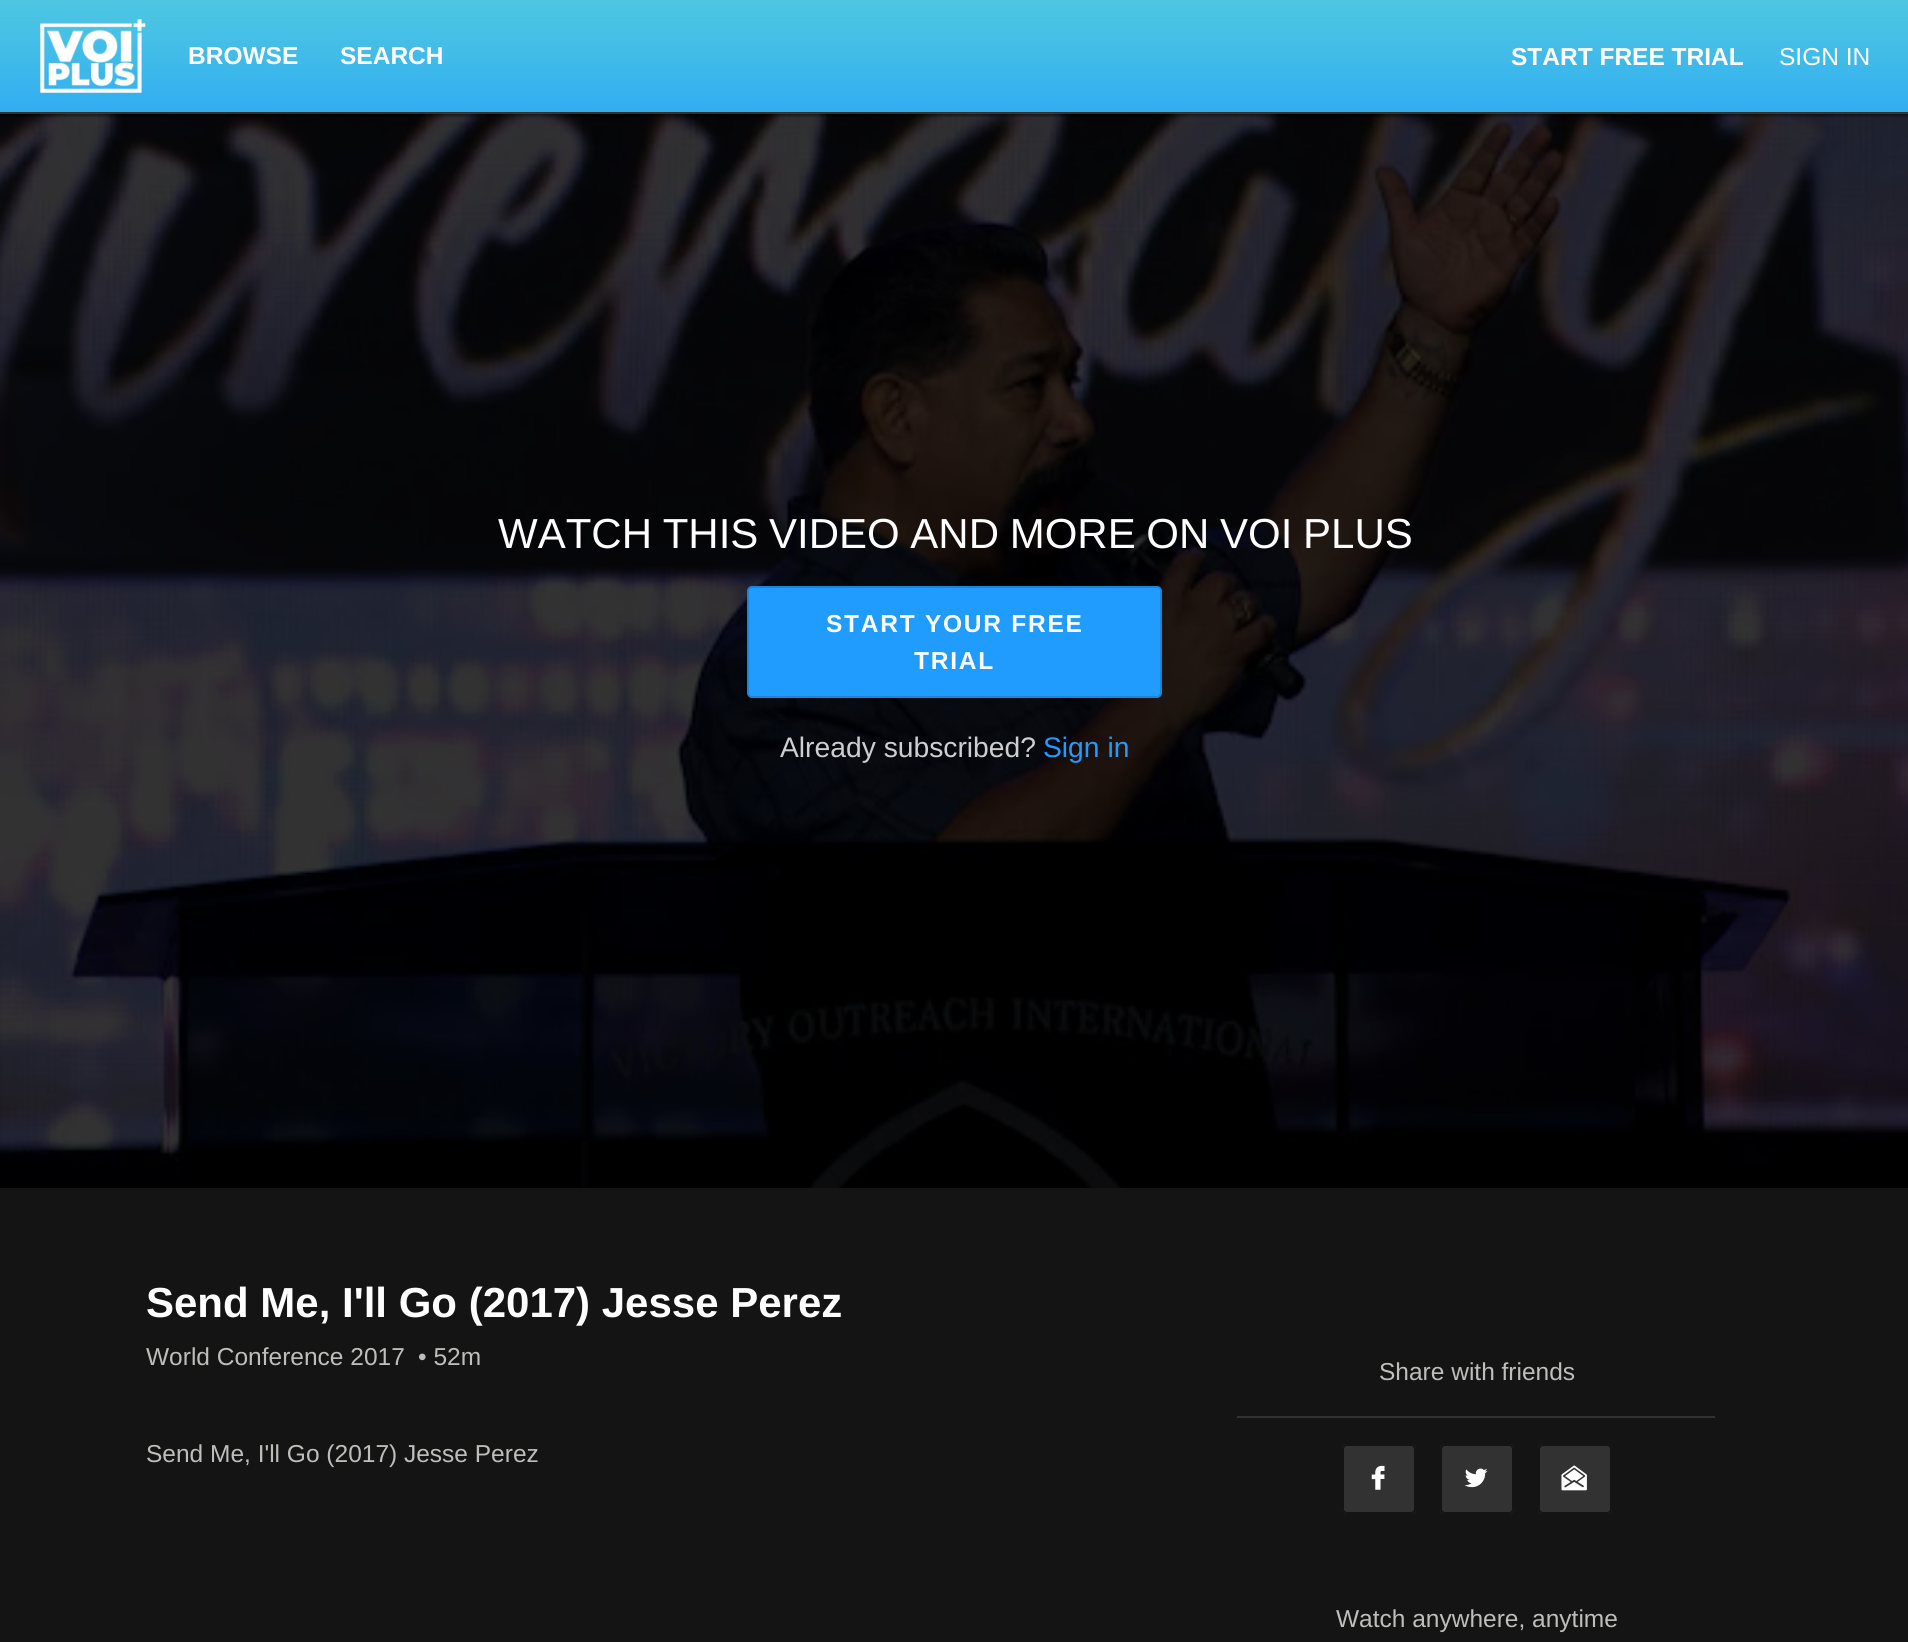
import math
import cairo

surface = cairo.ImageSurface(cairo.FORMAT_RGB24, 1908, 1642)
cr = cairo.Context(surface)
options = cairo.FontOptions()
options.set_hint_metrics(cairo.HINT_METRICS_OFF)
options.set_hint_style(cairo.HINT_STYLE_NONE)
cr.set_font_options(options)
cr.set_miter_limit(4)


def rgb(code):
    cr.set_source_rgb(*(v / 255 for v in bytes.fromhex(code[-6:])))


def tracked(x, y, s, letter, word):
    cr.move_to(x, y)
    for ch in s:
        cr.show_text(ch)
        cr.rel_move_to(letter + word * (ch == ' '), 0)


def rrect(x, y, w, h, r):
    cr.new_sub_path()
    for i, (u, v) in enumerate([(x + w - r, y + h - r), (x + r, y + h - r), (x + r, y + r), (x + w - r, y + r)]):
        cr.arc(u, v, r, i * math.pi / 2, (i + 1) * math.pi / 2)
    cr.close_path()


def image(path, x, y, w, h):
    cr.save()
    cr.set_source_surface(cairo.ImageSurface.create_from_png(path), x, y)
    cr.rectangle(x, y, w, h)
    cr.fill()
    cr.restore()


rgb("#141414")
cr.paint()
image("img/1.png", 0, 0, 1908, 112)
rgb("#323232")
cr.rectangle(0, 112, 1908, 2)
cr.fill()
image("img/2.png", 40, 19, 106, 74)
image("img/3.png", 0, 113, 1908, 1075)
rgb("#209cff")
rrect(748, 587, 413, 110, 4)
cr.fill_preserve()
rgb("#1b85d9")
cr.stroke()
rgb("#323232")
cr.rectangle(1237, 1416, 478, 2)
cr.fill()
rrect(1342, 1444, 74, 70, 5)
cr.fill()
image("img/4.png", 1371, 1465, 14, 25)
rrect(1343, 1445, 72, 68, 4)
rgb("#141414")
cr.stroke()
rgb("#323232")
rrect(1440, 1444, 74, 70, 5)
cr.fill()
image("img/5.png", 1464, 1468, 24, 20)
rrect(1441, 1445, 72, 68, 4)
rgb("#141414")
cr.stroke()
rgb("#323232")
rrect(1538, 1444, 74, 70, 5)
cr.fill()
image("img/6.png", 1561, 1465, 26, 26)
rrect(1539, 1445, 72, 68, 4)
rgb("#141414")
cr.stroke()
cr.select_font_face("Liberation Sans", cairo.FONT_SLANT_NORMAL, cairo.FONT_WEIGHT_BOLD)
cr.set_font_size(24.5)
rgb("#ffffff")
for x, y, s in [
    (188, 64, "BROWSE"),
    (340, 64, "SEARCH"),
    (1511, 65, "START FREE TRIAL"),
]:
    cr.move_to(x, y)
    cr.show_text(s)
cr.select_font_face("Liberation Sans")
cr.move_to(1779, 65)
cr.show_text("SIGN IN")
cr.set_font_size(42)
tracked(498, 548, "WATCH THIS VIDEO AND MORE ON VOI PLUS", 0, -1)
cr.select_font_face("Liberation Sans", cairo.FONT_SLANT_NORMAL, cairo.FONT_WEIGHT_BOLD)
cr.set_font_size(24.5)
tracked(826, 632, "START YOUR FREE", 1.75, 0)
tracked(914, 669, "TRIAL", 1.75, 0)
cr.select_font_face("Liberation Sans")
cr.set_font_size(28.25)
rgb("#cdcecf")
cr.move_to(780, 757)
cr.show_text("Already subscribed?")
rgb("#209cff")
cr.move_to(1043, 757)
cr.show_text("Sign in")
cr.select_font_face("Liberation Sans", cairo.FONT_SLANT_NORMAL, cairo.FONT_WEIGHT_BOLD)
cr.set_font_size(42)
rgb("#ffffff")
cr.move_to(146, 1317)
cr.show_text("Send Me, I'll Go (2017) Jesse Perez")
cr.select_font_face("Liberation Sans")
cr.set_font_size(24.5)
rgb("#bebebb")
for x, y, s in [
    (146, 1365, "World Conference 2017"),
    (418, 1365, "• 52m"),
    (146, 1462, "Send Me, I'll Go (2017) Jesse Perez"),
    (1379, 1380, "Share with friends"),
    (1336, 1627, "Watch anywhere, anytime"),
]:
    cr.move_to(x, y)
    cr.show_text(s)
surface.write_to_png("page.png")
